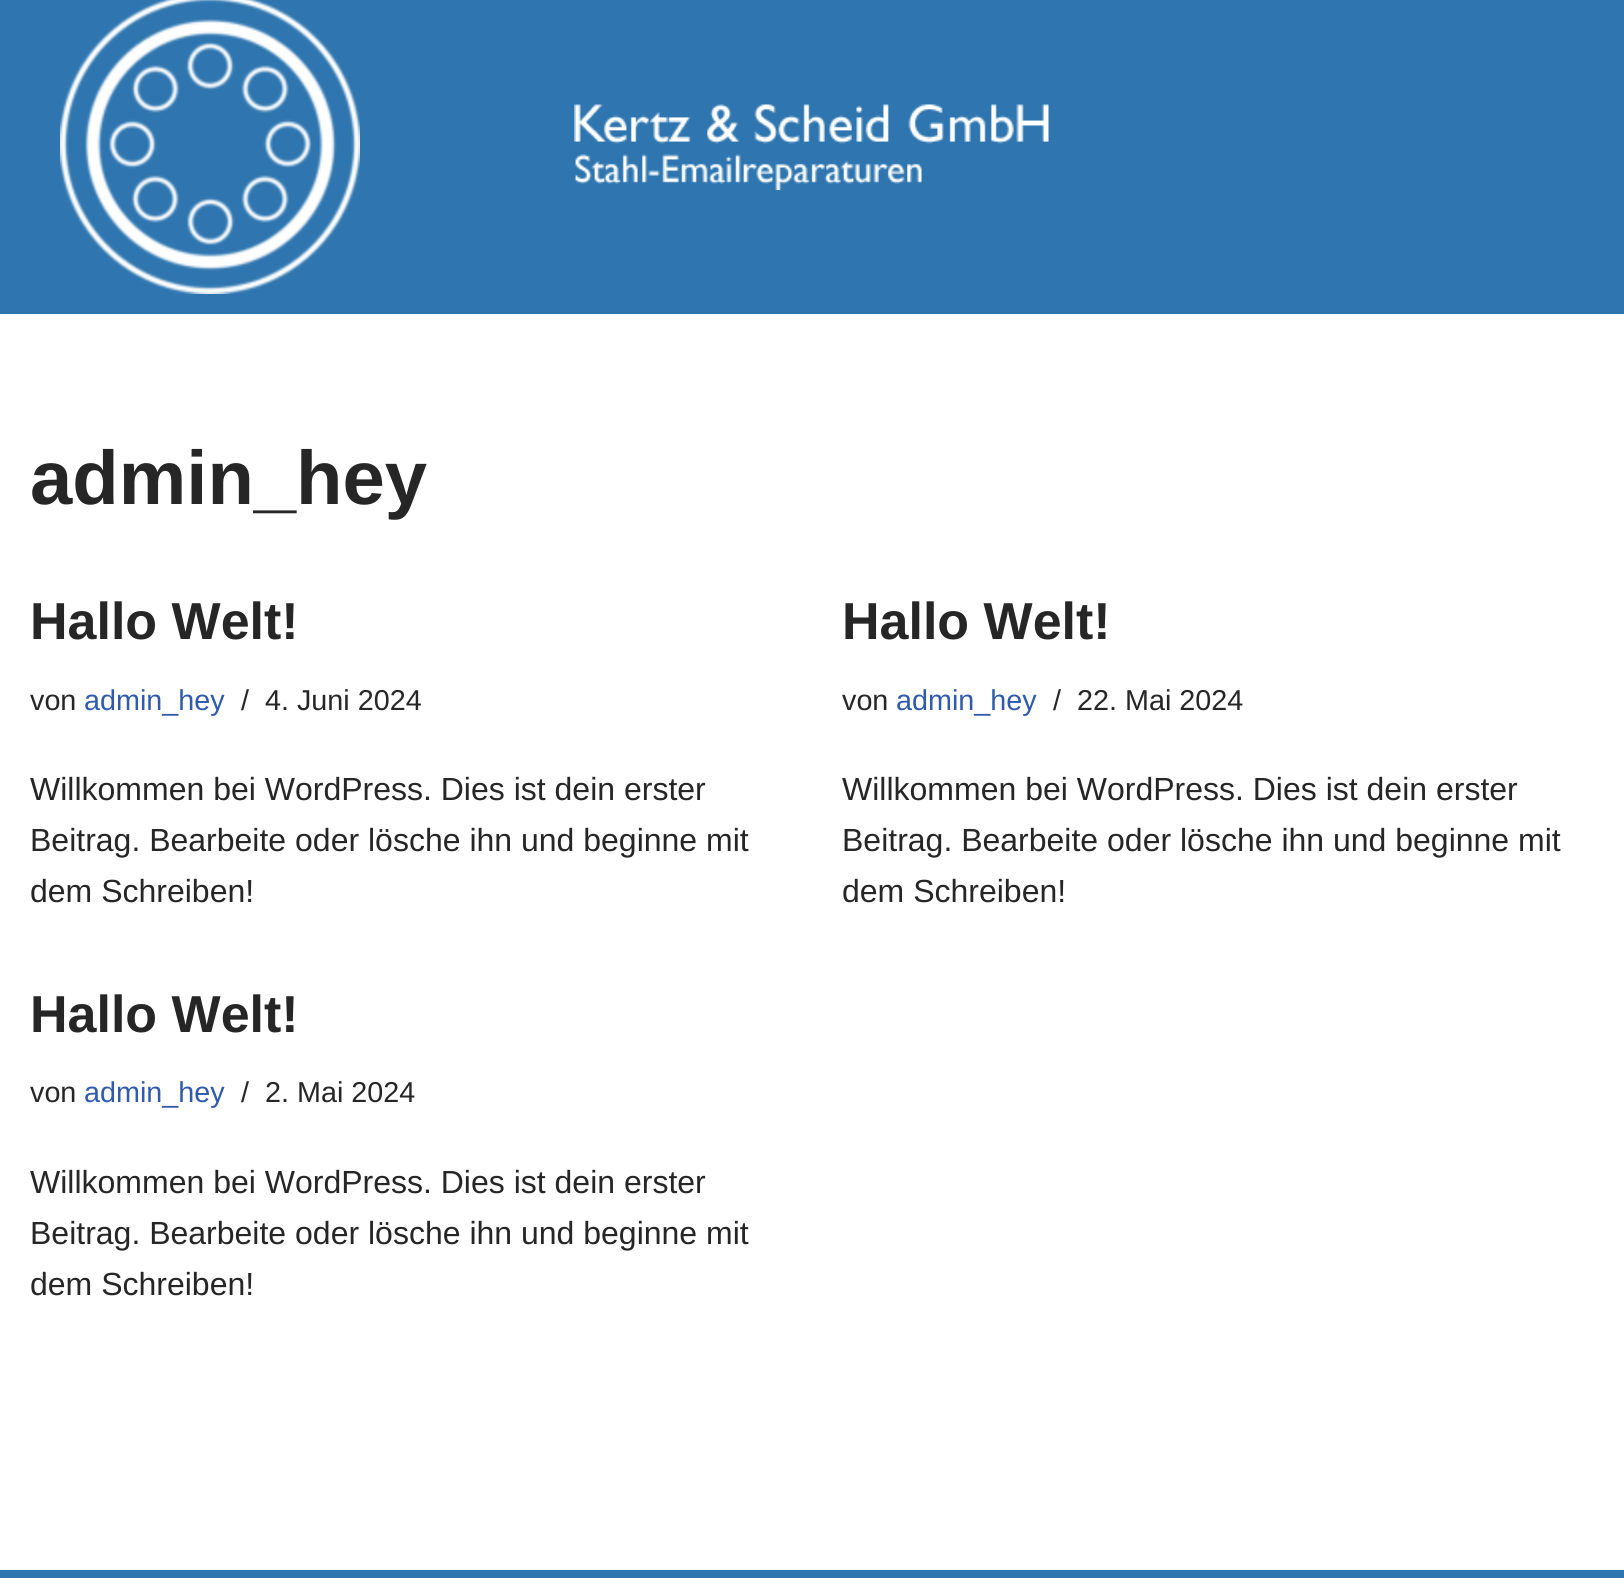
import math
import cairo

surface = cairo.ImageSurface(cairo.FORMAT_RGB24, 1624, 1578)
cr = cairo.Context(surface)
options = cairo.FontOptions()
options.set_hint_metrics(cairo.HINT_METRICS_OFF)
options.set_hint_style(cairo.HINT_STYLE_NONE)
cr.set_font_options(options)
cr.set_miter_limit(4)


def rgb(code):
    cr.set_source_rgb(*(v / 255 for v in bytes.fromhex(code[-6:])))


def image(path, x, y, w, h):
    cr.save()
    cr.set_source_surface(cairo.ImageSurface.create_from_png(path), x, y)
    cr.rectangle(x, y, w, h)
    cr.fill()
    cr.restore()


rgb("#ffffff")
cr.paint()
rgb("#2f76b0")
cr.rectangle(0, 0, 1624, 314)
cr.fill()
image("img/1.png", 60, 0, 300, 294)
image("img/2.png", 574, 104, 475, 86)
cr.rectangle(0, 1570, 1624, 8)
cr.fill()
cr.select_font_face("Liberation Sans", cairo.FONT_SLANT_NORMAL, cairo.FONT_WEIGHT_BOLD)
cr.set_font_size(76)
rgb("#272626")
cr.move_to(30, 504)
cr.show_text("admin_hey")
cr.set_font_size(52)
cr.move_to(30, 639)
cr.show_text("Hallo Welt!")
cr.select_font_face("Liberation Sans")
cr.set_font_size(28.75)
cr.move_to(30, 710)
cr.show_text("von")
rgb("#2f5aae")
cr.move_to(84, 710)
cr.show_text("admin_hey")
rgb("#272626")
cr.move_to(241, 710)
cr.show_text("/")
cr.move_to(265, 710)
cr.show_text("4. Juni 2024")
cr.set_font_size(32)
for x, y, s in [
    (30, 800, "Willkommen bei WordPress. Dies ist dein erster"),
    (30, 851, "Beitrag. Bearbeite oder lösche ihn und beginne mit"),
    (30, 902, "dem Schreiben!"),
]:
    cr.move_to(x, y)
    cr.show_text(s)
cr.select_font_face("Liberation Sans", cairo.FONT_SLANT_NORMAL, cairo.FONT_WEIGHT_BOLD)
cr.set_font_size(52)
cr.move_to(842, 639)
cr.show_text("Hallo Welt!")
cr.select_font_face("Liberation Sans")
cr.set_font_size(28.75)
cr.move_to(842, 710)
cr.show_text("von")
rgb("#2f5aae")
cr.move_to(896, 710)
cr.show_text("admin_hey")
rgb("#272626")
cr.move_to(1053, 710)
cr.show_text("/")
cr.move_to(1077, 710)
cr.show_text("22. Mai 2024")
cr.set_font_size(32)
for x, y, s in [
    (842, 800, "Willkommen bei WordPress. Dies ist dein erster"),
    (842, 851, "Beitrag. Bearbeite oder lösche ihn und beginne mit"),
    (842, 902, "dem Schreiben!"),
]:
    cr.move_to(x, y)
    cr.show_text(s)
cr.select_font_face("Liberation Sans", cairo.FONT_SLANT_NORMAL, cairo.FONT_WEIGHT_BOLD)
cr.set_font_size(52)
cr.move_to(30, 1032)
cr.show_text("Hallo Welt!")
cr.select_font_face("Liberation Sans")
cr.set_font_size(28.75)
cr.move_to(30, 1102)
cr.show_text("von")
rgb("#2f5aae")
cr.move_to(84, 1102)
cr.show_text("admin_hey")
rgb("#272626")
cr.move_to(241, 1102)
cr.show_text("/")
cr.move_to(265, 1102)
cr.show_text("2. Mai 2024")
cr.set_font_size(32)
for x, y, s in [
    (30, 1193, "Willkommen bei WordPress. Dies ist dein erster"),
    (30, 1244, "Beitrag. Bearbeite oder lösche ihn und beginne mit"),
    (30, 1295, "dem Schreiben!"),
]:
    cr.move_to(x, y)
    cr.show_text(s)
surface.write_to_png("page.png")
